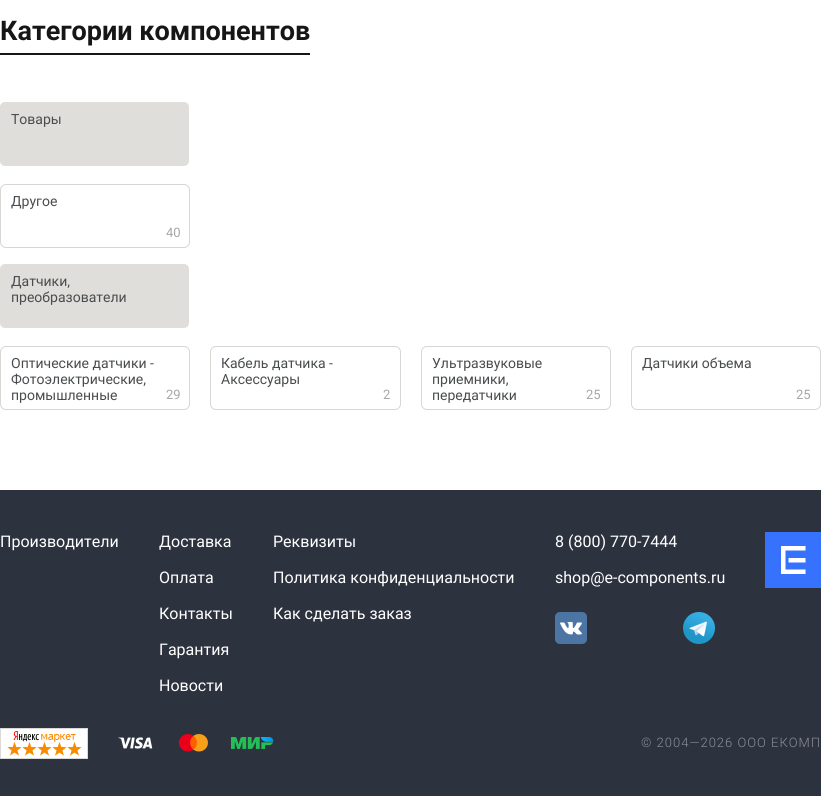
import math
import cairo

surface = cairo.ImageSurface(cairo.FORMAT_RGB24, 821, 796)
cr = cairo.Context(surface)
options = cairo.FontOptions()
options.set_hint_metrics(cairo.HINT_METRICS_OFF)
options.set_hint_style(cairo.HINT_STYLE_NONE)
cr.set_font_options(options)
cr.set_miter_limit(4)


def rgb(code):
    cr.set_source_rgb(*(v / 255 for v in bytes.fromhex(code[-6:])))


def tracked(x, y, s, letter, word):
    cr.move_to(x, y)
    for ch in s:
        cr.show_text(ch)
        cr.rel_move_to(letter + word * (ch == ' '), 0)


def rrect(x, y, w, h, r):
    cr.new_sub_path()
    for i, (u, v) in enumerate([(x + w - r, y + h - r), (x + r, y + h - r), (x + r, y + r), (x + w - r, y + r)]):
        cr.arc(u, v, r, i * math.pi / 2, (i + 1) * math.pi / 2)
    cr.close_path()


def image(path, x, y, w, h):
    cr.save()
    cr.set_source_surface(cairo.ImageSurface.create_from_png(path), x, y)
    cr.rectangle(x, y, w, h)
    cr.fill()
    cr.restore()


rgb("#ffffff")
cr.paint()
rgb("#161616")
cr.rectangle(0, 53, 310, 2)
cr.fill()
rgb("#e0dedb")
rrect(0, 102, 189, 64, 5)
cr.fill()
rrect(0.5, 184.5, 189, 63, 5.5)
rgb("#d8d6d3")
cr.set_line_width(1)
cr.stroke()
rgb("#e0dedb")
rrect(0, 264, 189, 64, 5)
cr.fill()
rrect(0.5, 346.5, 189, 63, 5.5)
rgb("#d8d6d3")
cr.stroke()
rrect(210.5, 346.5, 190, 63, 5.5)
cr.stroke()
rrect(421.5, 346.5, 189, 63, 5.5)
cr.stroke()
rrect(631.5, 346.5, 189, 63, 5.5)
cr.stroke()
rgb("#2d323f")
cr.rectangle(0, 490, 821, 306)
cr.fill()
image("img/1.png", 555, 612, 32, 32)
image("img/2.png", 683, 612, 32, 32)
rgb("#3772ff")
cr.rectangle(765, 532, 56, 56)
cr.fill()
rgb("#ffffff")
cr.set_fill_rule(cairo.FILL_RULE_EVEN_ODD)
cr.new_path()
cr.move_to(785.5, 546)
cr.line_to(781, 546)
cr.line_to(781, 574)
cr.line_to(805.5, 574)
cr.line_to(805.5, 569.5)
cr.line_to(785.5, 569.5)
cr.line_to(785.5, 550.5)
cr.line_to(805.5, 550.5)
cr.line_to(805.5, 546)
cr.close_path()
cr.move_to(788.5, 562.5)
cr.line_to(805.5, 562.5)
cr.line_to(805.5, 558)
cr.line_to(788.5, 558)
cr.close_path()
cr.fill()
image("img/3.png", 0, 728, 88, 31)
image("img/4.png", 118, 737, 35, 12)
image("img/5.png", 179, 734, 29, 18)
image("img/6.png", 231, 737, 43, 12)
cr.select_font_face("Roboto", cairo.FONT_SLANT_NORMAL, cairo.FONT_WEIGHT_BOLD)
cr.set_font_size(27)
rgb("#161616")
cr.move_to(0, 40)
cr.show_text("Категории компонентов")
cr.select_font_face("Roboto")
cr.set_font_size(14)
rgb("#494c4e")
cr.move_to(11, 124)
cr.show_text("Товары")
cr.move_to(11, 206)
cr.show_text("Другое")
cr.set_font_size(13)
rgb("#a5a7aa")
cr.move_to(166, 237)
cr.show_text("40")
cr.set_font_size(14)
rgb("#494c4e")
for x, y, s in [
    (11, 286, "Датчики,"),
    (11, 302, "преобразователи"),
    (11, 368, "Оптические датчики -"),
    (11, 384, "Фотоэлектрические,"),
    (11, 400, "промышленные"),
]:
    cr.move_to(x, y)
    cr.show_text(s)
cr.set_font_size(13)
rgb("#a5a7aa")
cr.move_to(166, 399)
cr.show_text("29")
cr.set_font_size(14)
rgb("#494c4e")
cr.move_to(221, 368)
cr.show_text("Кабель датчика -")
cr.move_to(221, 384)
cr.show_text("Аксессуары")
cr.set_font_size(13)
rgb("#a5a7aa")
cr.move_to(383, 399)
cr.show_text("2")
cr.set_font_size(14)
rgb("#494c4e")
for x, y, s in [
    (432, 368, "Ультразвуковые"),
    (432, 384, "приемники,"),
    (432, 400, "передатчики"),
]:
    cr.move_to(x, y)
    cr.show_text(s)
cr.set_font_size(13)
rgb("#a5a7aa")
cr.move_to(586, 399)
cr.show_text("25")
cr.set_font_size(14)
rgb("#494c4e")
cr.move_to(642, 368)
cr.show_text("Датчики объема")
cr.set_font_size(13)
rgb("#a5a7aa")
cr.move_to(796, 399)
cr.show_text("25")
cr.set_font_size(16)
rgb("#ffffff")
for x, y, s in [
    (0, 547, "Производители"),
    (159, 547, "Доставка"),
    (159, 583, "Оплата"),
    (159, 619, "Контакты"),
    (159, 655, "Гарантия"),
    (159, 691, "Новости"),
    (273, 547, "Реквизиты"),
    (273, 583, "Политика конфиденциальности"),
    (273, 619, "Как сделать заказ"),
    (555, 547, "8 (800) 770-7444"),
    (555, 583, "shop@e-components.ru"),
]:
    cr.move_to(x, y)
    cr.show_text(s)
cr.select_font_face("Roboto Light")
cr.set_font_size(13)
rgb("#8c8e95")
tracked(641, 747, "© 2004—2026 ООО ЕКОМП", 1, 0)
surface.write_to_png("page.png")
